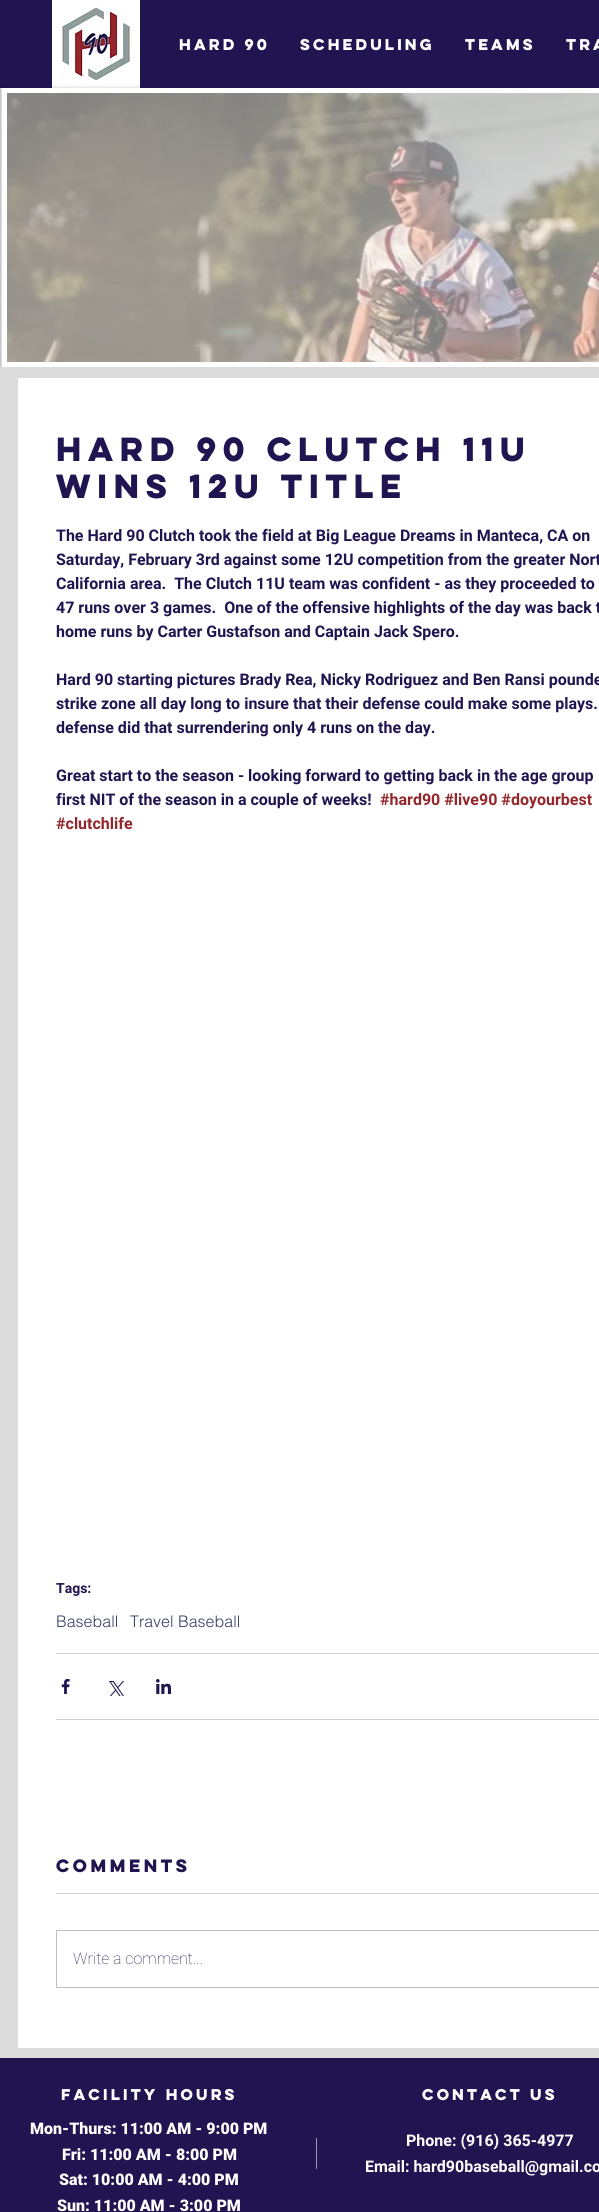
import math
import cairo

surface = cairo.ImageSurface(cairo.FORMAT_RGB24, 599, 2212)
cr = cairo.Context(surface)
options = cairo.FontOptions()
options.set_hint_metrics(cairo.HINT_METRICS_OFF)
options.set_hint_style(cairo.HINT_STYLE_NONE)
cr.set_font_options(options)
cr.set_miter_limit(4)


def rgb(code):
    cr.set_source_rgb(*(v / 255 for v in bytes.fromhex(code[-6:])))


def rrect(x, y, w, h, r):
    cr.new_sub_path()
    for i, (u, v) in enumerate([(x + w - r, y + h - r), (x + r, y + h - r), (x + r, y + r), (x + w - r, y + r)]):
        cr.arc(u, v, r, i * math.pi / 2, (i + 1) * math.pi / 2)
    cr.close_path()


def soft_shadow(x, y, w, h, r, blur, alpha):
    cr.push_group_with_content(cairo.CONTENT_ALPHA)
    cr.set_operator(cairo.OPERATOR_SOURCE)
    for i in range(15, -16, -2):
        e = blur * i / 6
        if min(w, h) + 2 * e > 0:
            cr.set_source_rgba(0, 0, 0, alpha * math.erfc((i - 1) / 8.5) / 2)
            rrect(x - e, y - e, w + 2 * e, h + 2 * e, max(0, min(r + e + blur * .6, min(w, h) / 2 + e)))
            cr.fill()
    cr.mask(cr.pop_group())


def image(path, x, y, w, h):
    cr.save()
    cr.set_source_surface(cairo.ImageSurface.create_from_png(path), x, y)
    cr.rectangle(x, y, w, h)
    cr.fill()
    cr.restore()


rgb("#dbdbdb")
cr.paint()
rgb("#211551")
cr.rectangle(0, 0, 599, 88)
cr.fill()
image("img/1.png", 52, 0, 88, 88)
rgb("#000000")
soft_shadow(2, 89, 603, 279, 0, 2, 0.4)
rgb("#ffffff")
cr.rectangle(2, 88, 597, 279)
cr.fill()
image("img/2.png", 7, 93, 592, 269)
cr.set_source_rgba(1, 1, 1, 0.5)
cr.rectangle(1, 88, 598, 279)
cr.fill()
rgb("#dbdbdb")
cr.rectangle(0, 367, 599, 5)
cr.fill()
rgb("#ffffff")
cr.rectangle(18, 378, 581, 1670)
cr.fill()
rgb("#d3d0dc")
cr.rectangle(56, 1653, 543, 1)
cr.fill()
image("img/3.png", 61, 1679, 9, 15)
image("img/4.png", 109, 1681, 15, 15)
image("img/5.png", 156, 1679, 15, 15)
cr.rectangle(56, 1719, 543, 1)
cr.fill()
cr.rectangle(56, 1893, 543, 1)
cr.fill()
cr.rectangle(56.5, 1930.5, 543, 57)
rgb("#c1c0c0")
cr.set_line_width(1)
cr.stroke()
rgb("#211551")
cr.rectangle(0, 2058, 599, 154)
cr.fill()
rgb("#959cb2")
cr.rectangle(316, 2138, 1, 31)
cr.fill()
cr.select_font_face("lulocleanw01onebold", cairo.FONT_SLANT_NORMAL, cairo.FONT_WEIGHT_BOLD)
cr.set_font_size(14)
rgb("#ffffff")
for x, y, s in [
    (179, 50, "HARD 90"),
    (300, 50, "SCHEDULING"),
    (465, 50, "TEAMS"),
    (566, 50, "TRA"),
]:
    cr.move_to(x, y)
    cr.show_text(s)
cr.set_font_size(30)
rgb("#211551")
cr.move_to(56, 461)
cr.show_text("HARD 90 CLUTCH 11U")
cr.move_to(56, 498)
cr.show_text("WINS 12U TITLE")
cr.select_font_face("Roboto", cairo.FONT_SLANT_NORMAL, cairo.FONT_WEIGHT_BOLD)
cr.set_font_size(16)
for x, y, s in [
    (56, 541, "The Hard 90 Clutch took the field at Big League Dreams in Manteca, CA on"),
    (56, 565, "Saturday, February 3rd against some 12U competition from the greater Nort"),
    (56, 589, "California area.  The Clutch 11U team was confident - as they proceeded to"),
    (56, 613, "47 runs over 3 games.  One of the offensive highlights of the day was back t"),
    (56, 637, "home runs by Carter Gustafson and Captain Jack Spero."),
    (56, 685, "Hard 90 starting pictures Brady Rea, Nicky Rodriguez and Ben Ransi pounde"),
    (56, 709, "strike zone all day long to insure that their defense could make some plays."),
    (56, 733, "defense did that surrendering only 4 runs on the day."),
    (56, 781, "Great start to the season - looking forward to getting back in the age group"),
    (56, 805, "first NIT of the season in a couple of weeks!"),
]:
    cr.move_to(x, y)
    cr.show_text(s)
rgb("#93272c")
cr.move_to(380, 805)
cr.show_text("#hard90 #live90 #doyourbest")
cr.move_to(56, 829)
cr.show_text("#clutchlife")
cr.set_font_size(14)
rgb("#211551")
cr.move_to(56, 1593)
cr.show_text("Tags:")
cr.select_font_face("helvetica Light")
cr.set_font_size(16)
rgb("#343f64")
cr.move_to(56, 1627)
cr.show_text("Baseball")
cr.move_to(130, 1627)
cr.show_text("Travel Baseball")
cr.select_font_face("lulocleanw01onebold", cairo.FONT_SLANT_NORMAL, cairo.FONT_WEIGHT_BOLD)
rgb("#211551")
cr.move_to(56, 1872)
cr.show_text("Comments")
cr.select_font_face("Roboto Thin")
cr.move_to(73, 1964)
cr.show_text("Write a comment...")
cr.select_font_face("lulocleanw01onebold", cairo.FONT_SLANT_NORMAL, cairo.FONT_WEIGHT_BOLD)
cr.set_font_size(14)
rgb("#ffffff")
cr.move_to(61, 2100)
cr.show_text("Facility Hours")
cr.move_to(422, 2100)
cr.show_text("Contact Us")
cr.select_font_face("Roboto Black")
cr.set_font_size(16)
for x, y, s in [
    (30, 2134, "Mon-Thurs: 11:00 AM - 9:00 PM"),
    (62, 2160, "Fri: 11:00 AM - 8:00 PM"),
    (59, 2185, "Sat: 10:00 AM - 4:00 PM"),
    (57, 2211, "Sun: 11:00 AM - 3:00 PM"),
]:
    cr.move_to(x, y)
    cr.show_text(s)
cr.select_font_face("Roboto", cairo.FONT_SLANT_NORMAL, cairo.FONT_WEIGHT_BOLD)
cr.move_to(406, 2146)
cr.show_text("Phone: (916) 365-4977")
cr.move_to(365, 2172)
cr.show_text("Email: hard90baseball@gmail.co")
surface.write_to_png("page.png")
